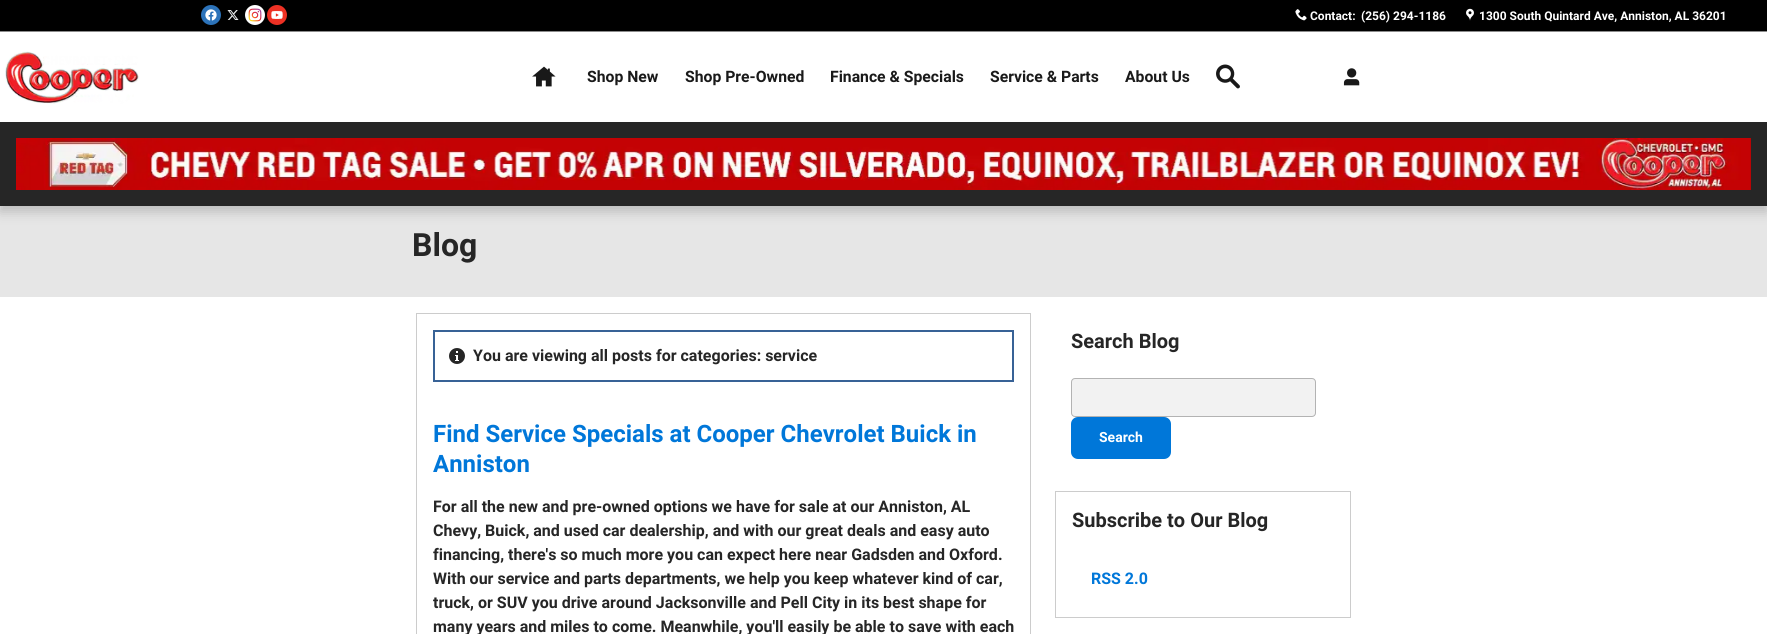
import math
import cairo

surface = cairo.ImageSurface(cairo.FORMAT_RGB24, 1767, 634)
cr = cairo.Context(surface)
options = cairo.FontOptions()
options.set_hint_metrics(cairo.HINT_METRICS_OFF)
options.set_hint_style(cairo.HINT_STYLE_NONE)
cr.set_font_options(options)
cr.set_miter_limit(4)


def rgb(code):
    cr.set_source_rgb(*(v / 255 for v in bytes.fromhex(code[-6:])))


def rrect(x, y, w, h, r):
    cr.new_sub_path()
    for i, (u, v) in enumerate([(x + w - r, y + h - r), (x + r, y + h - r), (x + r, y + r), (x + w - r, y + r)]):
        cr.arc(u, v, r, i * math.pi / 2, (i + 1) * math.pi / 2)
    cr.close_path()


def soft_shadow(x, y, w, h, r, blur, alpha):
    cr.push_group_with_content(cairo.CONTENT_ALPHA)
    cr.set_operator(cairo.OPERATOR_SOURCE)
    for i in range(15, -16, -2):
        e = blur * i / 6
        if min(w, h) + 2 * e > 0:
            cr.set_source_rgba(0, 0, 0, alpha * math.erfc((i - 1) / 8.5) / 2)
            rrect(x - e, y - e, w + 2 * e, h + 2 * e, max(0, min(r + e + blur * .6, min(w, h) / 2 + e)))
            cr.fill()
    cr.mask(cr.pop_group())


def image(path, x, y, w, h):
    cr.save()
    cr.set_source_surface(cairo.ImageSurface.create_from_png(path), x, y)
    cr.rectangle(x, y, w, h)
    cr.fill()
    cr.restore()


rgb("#ffffff")
cr.paint()
rgb("#e6e6e6")
cr.rectangle(0, 206, 1767, 91)
cr.fill()
rgb("#000000")
soft_shadow(0, 6, 1767, 206, 0, 6, 0.18)
for x, y, w, h, color in [
    (0, 32, 1767, 90, "#ffffff"),
    (0, 0, 1767, 31, "#000000"),
    (0, 31, 1767, 1, "#8c8c8c"),
]:
    rgb(color)
    cr.rectangle(x, y, w, h)
    cr.fill()
image("img/1.png", 201, 5, 20, 20)
image("img/2.png", 227, 10, 12, 10)
image("img/3.png", 245, 5, 20, 20)
image("img/4.png", 267, 5, 20, 20)
image("img/5.png", 1295, 9, 12, 12)
image("img/6.png", 1466, 8, 8, 13)
image("img/7.png", 5, 51, 134, 53)
image("img/8.png", 532, 66, 24, 21)
image("img/9.png", 1216, 64, 24, 25)
image("img/10.png", 1343, 68, 17, 18)
rgb("#262626")
cr.rectangle(0, 122, 1767, 84)
cr.fill()
image("img/11.png", 16, 138, 1735, 52)
cr.rectangle(416.5, 313.5, 614, 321)
rgb("#cccccc")
cr.set_line_width(1)
cr.stroke()
cr.rectangle(434, 331, 579, 50)
rgb("#386296")
cr.set_line_width(2)
cr.stroke()
image("img/12.png", 449, 348, 16, 16)
rgb("#f2f2f2")
rrect(1071.5, 378.5, 244, 38, 3.5)
cr.fill_preserve()
rgb("#b3b3b3")
cr.set_line_width(1)
cr.stroke()
rgb("#0077d9")
rrect(1072, 418, 98, 40, 6)
cr.fill_preserve()
cr.set_line_width(2)
cr.stroke()
cr.rectangle(1055.5, 491.5, 295, 126)
rgb("#cccccc")
cr.set_line_width(1)
cr.stroke()
cr.select_font_face("Roboto", cairo.FONT_SLANT_NORMAL, cairo.FONT_WEIGHT_BOLD)
cr.set_font_size(12)
rgb("#ffffff")
for x, y, s in [
    (1310, 20, "Contact:"),
    (1361, 20, "(256) 294-1186"),
    (1479, 20, "1300 South Quintard Ave, Anniston, AL 36201"),
]:
    cr.move_to(x, y)
    cr.show_text(s)
cr.set_font_size(15.75)
rgb("#1a1a1a")
for x, y, s in [
    (587, 82, "Shop New"),
    (685, 82, "Shop Pre-Owned"),
    (830, 82, "Finance & Specials"),
    (990, 82, "Service & Parts"),
    (1125, 82, "About Us"),
]:
    cr.move_to(x, y)
    cr.show_text(s)
cr.set_font_size(32)
rgb("#262626")
cr.move_to(412, 256)
cr.show_text("Blog")
cr.set_font_size(16)
cr.move_to(473, 361)
cr.show_text("You are viewing all posts for categories: service")
cr.set_font_size(24)
rgb("#0077d9")
cr.move_to(433, 442)
cr.show_text("Find Service Specials at Cooper Chevrolet Buick in")
cr.move_to(433, 472)
cr.show_text("Anniston")
cr.set_font_size(16)
rgb("#262626")
for x, y, s in [
    (433, 512, "For all the new and pre-owned options we have for sale at our Anniston, AL"),
    (433, 536, "Chevy, Buick, and used car dealership, and with our great deals and easy auto"),
    (433, 560, "financing, there's so much more you can expect here near Gadsden and Oxford."),
    (433, 584, "With our service and parts departments, we help you keep whatever kind of car,"),
    (433, 608, "truck, or SUV you drive around Jacksonville and Pell City in its best shape for"),
    (433, 632, "many years and miles to come. Meanwhile, you'll easily be able to save with each"),
]:
    cr.move_to(x, y)
    cr.show_text(s)
cr.set_font_size(20)
cr.move_to(1071, 348)
cr.show_text("Search Blog")
cr.set_font_size(14)
rgb("#ffffff")
cr.move_to(1099, 442)
cr.show_text("Search")
cr.set_font_size(20)
rgb("#262626")
cr.move_to(1072, 527)
cr.show_text("Subscribe to Our Blog")
cr.set_font_size(16)
rgb("#0077d9")
cr.move_to(1091, 584)
cr.show_text("RSS 2.0")
surface.write_to_png("page.png")
